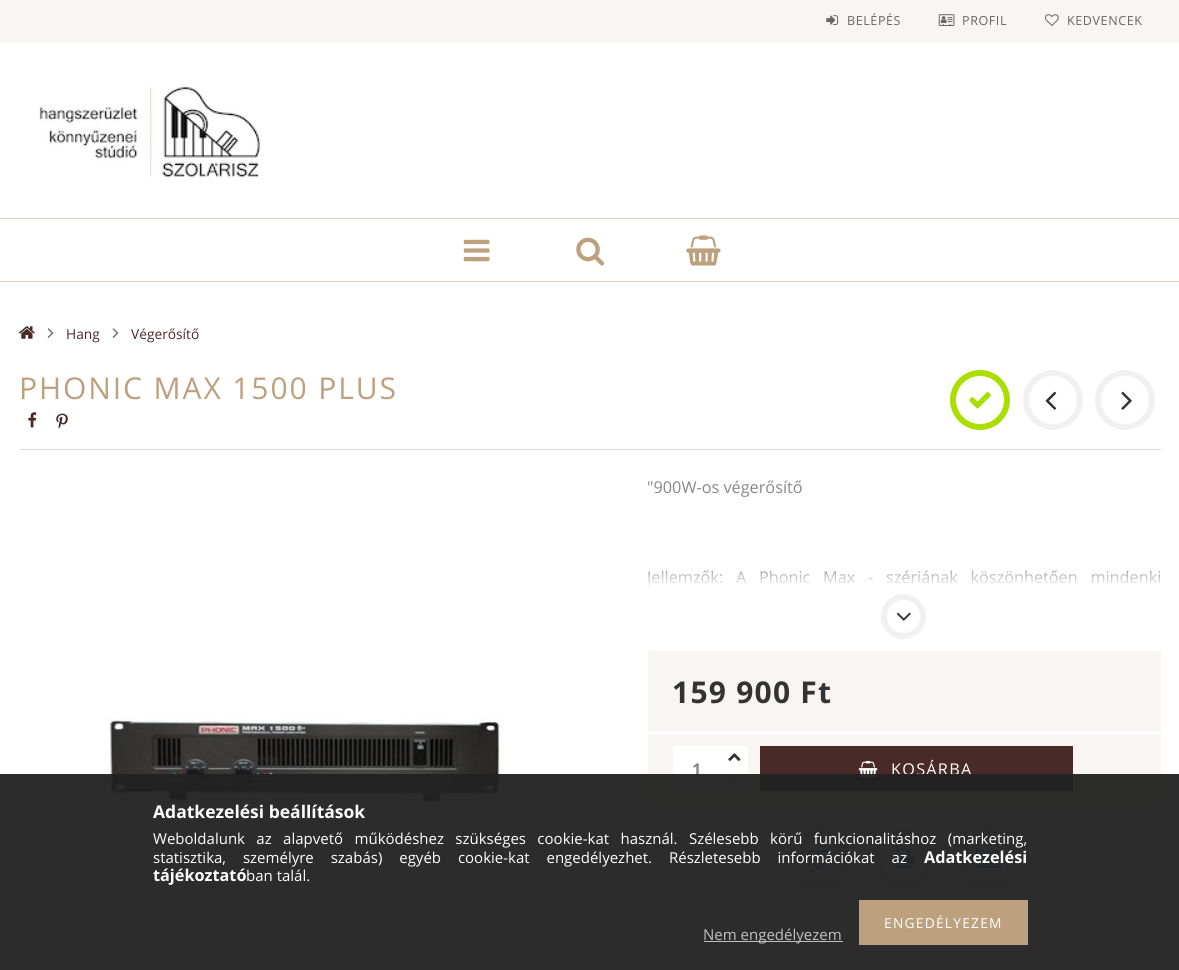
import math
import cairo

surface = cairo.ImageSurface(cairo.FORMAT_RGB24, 1179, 970)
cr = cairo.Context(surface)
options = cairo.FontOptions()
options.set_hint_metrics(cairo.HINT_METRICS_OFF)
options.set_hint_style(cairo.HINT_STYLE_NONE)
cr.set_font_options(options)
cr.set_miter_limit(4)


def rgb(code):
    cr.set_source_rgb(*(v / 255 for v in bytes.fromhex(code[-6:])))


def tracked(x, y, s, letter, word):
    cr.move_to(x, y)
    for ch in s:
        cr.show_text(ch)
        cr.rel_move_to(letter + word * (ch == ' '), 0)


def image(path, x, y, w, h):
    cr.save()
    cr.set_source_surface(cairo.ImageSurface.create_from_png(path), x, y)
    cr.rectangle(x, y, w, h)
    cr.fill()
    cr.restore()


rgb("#ffffff")
cr.paint()
rgb("#f8f5f2")
cr.rectangle(0, 0, 1179, 43)
cr.fill()
image("img/1.png", 826, 15, 13, 10)
image("img/2.png", 938, 14, 17, 12)
image("img/3.png", 1045, 14, 14, 12)
image("img/4.png", 39, 86, 222, 92)
rgb("#decfbe")
cr.rectangle(0, 218, 1179, 1)
cr.fill()
cr.rectangle(0, 281, 1179, 1)
cr.fill()
image("img/5.png", 463, 239, 27, 23)
image("img/6.png", 576, 237, 29, 29)
image("img/7.png", 686, 235, 35, 31)
image("img/8.png", 19, 326, 16, 13)
image("img/9.png", 47, 328, 7, 10)
image("img/9.png", 112, 328, 7, 10)
rgb("#dddddd")
cr.rectangle(19, 449, 1142, 1)
cr.fill()
image("img/10.png", 28, 412, 9, 16)
image("img/11.png", 56, 413, 12, 16)
cr.arc(980, 400, 27, 0, 2 * math.pi)
rgb("#aadd00")
cr.set_line_width(6)
cr.stroke()
image("img/12.png", 969, 392, 22, 17)
cr.arc(1053, 400, 27, 0, 2 * math.pi)
rgb("#f1f1f1")
cr.stroke()
image("img/13.png", 1045, 391, 12, 19)
cr.arc(1125, 400, 27, 0, 2 * math.pi)
cr.stroke()
image("img/14.png", 1121, 391, 11, 19)
image("img/15.png", 105, 717, 398, 86)
cr.arc(903.5, 616.5, 19.5, 0, 2 * math.pi)
cr.stroke()
image("img/16.png", 896, 612, 15, 9)
for x, y, w, h, color in [
    (648, 651, 513, 80, "#f8f5f2"),
    (648, 734, 513, 70, "#f8f5f2"),
    (673, 746, 50, 45, "#ffffff"),
    (723, 746, 25, 45, "#ffffff"),
]:
    rgb(color)
    cr.rectangle(x, y, w, h)
    cr.fill()
image("img/17.png", 728, 753, 13, 8)
image("img/18.png", 728, 776, 13, 8)
rgb("#482a28")
cr.rectangle(760, 746, 313, 45)
cr.fill()
image("img/19.png", 858, 761, 20, 17)
cr.arc(819, 859, 27, 0, 2 * math.pi)
rgb("#f1f1f1")
cr.stroke()
image("img/20.png", 807, 849, 23, 21)
cr.arc(904, 859, 27, 0, 2 * math.pi)
cr.stroke()
image("img/21.png", 893, 848, 22, 20)
cr.arc(989, 859, 27, 0, 2 * math.pi)
cr.stroke()
image("img/22.png", 975, 848, 27, 20)
cr.select_font_face("Open Sans")
cr.set_font_size(12.5)
rgb("#666666")
for x, y, s in [
    (847, 25, "BELÉPÉS"),
    (962, 25, "PROFIL"),
    (1067, 25, "KEDVENCEK"),
]:
    tracked(x, y, s, 0.6, 0)
cr.set_font_size(13.75)
rgb("#482a28")
cr.move_to(66, 339)
cr.show_text("Hang")
cr.move_to(131, 339)
cr.show_text("Végerősítő")
cr.set_font_size(30)
rgb("#bda07e")
tracked(19, 399, "PHONIC MAX 1500 PLUS", 1.9, 0)
cr.set_font_size(16.25)
rgb("#888888")
cr.move_to(647, 493)
cr.show_text("\"900W-os végerősítő")
cr.save()
cr.rectangle(648, 475, 513, 113)
cr.clip()
tracked(647, 583, "Jellemzők: A Phonic Max - szériának köszönhetően mindenki", 0, 8.5)
cr.restore()
gradient = cairo.LinearGradient(904, 565, 904, 588)
gradient.add_color_stop_rgba(0, 1, 1, 1, 0)
gradient.add_color_stop_rgba(1, 1, 1, 1, 1)
cr.set_source(gradient)
cr.rectangle(648, 570, 512, 16)
cr.fill()
cr.select_font_face("Open Sans", cairo.FONT_SLANT_NORMAL, cairo.FONT_WEIGHT_BOLD)
cr.set_font_size(30)
rgb("#333333")
tracked(672, 703, "159 900 Ft", 1.25, 0)
cr.set_font_size(16.25)
rgb("#888888")
cr.move_to(692, 775)
cr.show_text("1")
cr.select_font_face("Open Sans")
rgb("#ffffff")
tracked(891, 775, "KOSÁRBA", 1.25, 0)
cr.set_source_rgba(0.133, 0.133, 0.133, 0.95)
cr.rectangle(0, 774, 1179, 196)
cr.fill()
cr.select_font_face("Open Sans", cairo.FONT_SLANT_NORMAL, cairo.FONT_WEIGHT_BOLD)
cr.set_font_size(17.5)
rgb("#ffffff")
cr.move_to(153, 818)
cr.show_text("Adatkezelési beállítások")
cr.select_font_face("Open Sans")
cr.set_font_size(15)
tracked(153, 844, "Weboldalunk az alapvető működéshez szükséges cookie-kat használ. Szélesebb körű funkcionalitáshoz (marketing,", 0, 7.5)
tracked(153, 863, "statisztika, személyre szabás) egyéb cookie-kat engedélyezhet. Részletesebb információkat az", 0, 13)
cr.select_font_face("Open Sans", cairo.FONT_SLANT_NORMAL, cairo.FONT_WEIGHT_BOLD)
cr.set_font_size(16.25)
cr.move_to(924, 863)
cr.show_text("Adatkezelési")
cr.move_to(153, 881)
cr.show_text("tájékoztató")
cr.select_font_face("Open Sans")
cr.set_font_size(15)
cr.move_to(246, 881)
cr.show_text("ban talál.")
rgb("#bda07e")
cr.rectangle(859, 900, 169, 45)
cr.fill()
cr.set_font_size(13.75)
rgb("#ffffff")
tracked(884, 928, "ENGEDÉLYEZEM", 1.25, 0)
rgb("#c0c0c0")
cr.rectangle(704, 941, 139, 1)
cr.fill()
cr.set_font_size(15)
cr.move_to(703, 940)
cr.show_text("Nem engedélyezem")
surface.write_to_png("page.png")
